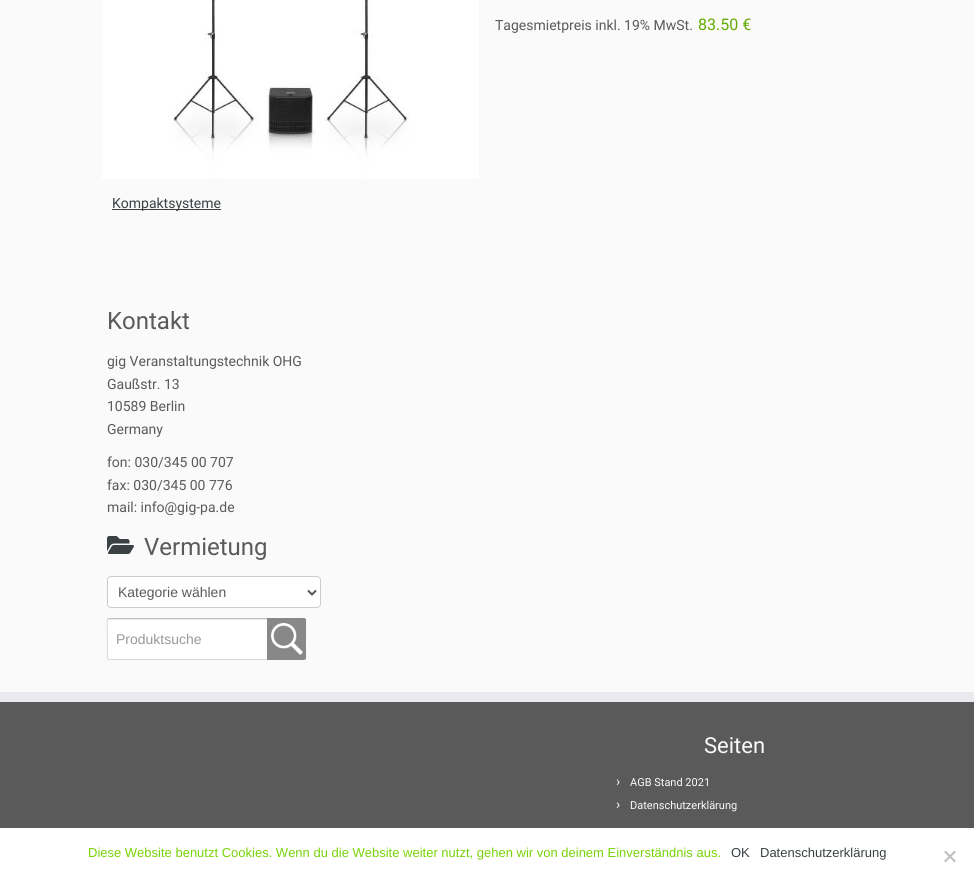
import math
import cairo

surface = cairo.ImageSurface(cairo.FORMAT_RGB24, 974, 884)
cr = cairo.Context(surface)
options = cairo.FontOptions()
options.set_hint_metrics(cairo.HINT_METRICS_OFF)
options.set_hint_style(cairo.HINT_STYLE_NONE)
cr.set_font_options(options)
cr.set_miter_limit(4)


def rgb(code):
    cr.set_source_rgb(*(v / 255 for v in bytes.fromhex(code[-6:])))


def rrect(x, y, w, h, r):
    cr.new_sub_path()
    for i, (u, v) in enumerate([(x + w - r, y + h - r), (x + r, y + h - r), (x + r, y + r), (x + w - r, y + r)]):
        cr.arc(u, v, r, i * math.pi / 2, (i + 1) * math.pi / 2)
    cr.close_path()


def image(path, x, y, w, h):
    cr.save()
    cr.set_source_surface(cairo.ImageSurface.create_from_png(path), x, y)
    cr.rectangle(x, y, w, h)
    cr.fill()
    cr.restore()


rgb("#fafafa")
cr.paint()
image("img/1.png", 102, 0, 377, 179)
rgb("#394143")
cr.rectangle(112, 209, 109, 1)
cr.fill()
image("img/2.png", 107, 536, 27, 18)
rgb("#ffffff")
rrect(107.5, 576.5, 213, 31, 3.5)
cr.fill_preserve()
rgb("#cccccc")
cr.set_line_width(1)
cr.stroke()
cr.new_path()
cr.move_to(308, 590.5)
cr.line_to(312, 594.5)
cr.line_to(316, 590.5)
rgb("#555555")
cr.set_line_width(2)
cr.stroke()
rgb("#ffffff")
rrect(107, 618, 199, 42, 2)
cr.fill()
rgb("#ececec")
cr.new_path()
cr.move_to(109, 620)
cr.line_to(305, 620)
cr.line_to(305, 621)
cr.curve_to(305, 620, 305, 619, 304, 619)
cr.line_to(108, 619)
cr.line_to(108, 621)
cr.curve_to(108, 620, 108, 620, 109, 620)
cr.close_path()
cr.fill()
cr.new_path()
cr.move_to(108, 619)
cr.line_to(109, 618.5)
cr.line_to(304, 618.5)
cr.line_to(305, 619)
rgb("#c0c0c0")
cr.set_line_width(1)
cr.stroke()
cr.new_path()
cr.move_to(305, 619)
cr.curve_to(306.5, 620.5, 305.5, 636, 305.5, 639)
cr.line_to(305.5, 651.5)
cr.curve_to(305.5, 654.5, 306.5, 659.5, 304, 659.5)
cr.line_to(109, 659.5)
cr.curve_to(106.5, 659.5, 107.5, 654.5, 107.5, 651.5)
cr.line_to(107.5, 639)
cr.curve_to(107.5, 636, 106.5, 620.5, 108, 619)
rgb("#d9d9d9")
cr.stroke()
rgb("#888888")
cr.new_path()
cr.move_to(267, 618)
cr.line_to(304, 618)
cr.curve_to(305, 618, 306, 619, 306, 620)
cr.line_to(306, 658)
cr.curve_to(306, 659, 305, 660, 304, 660)
cr.line_to(267, 660)
cr.close_path()
cr.fill()
image("img/3.png", 271, 623, 32, 32)
for x, y, w, h, color in [
    (0, 702, 974, 126, "#5a5a5a"),
    (0, 692, 974, 10, "#e9eaee"),
    (0, 828, 974, 56, "#ffffff"),
]:
    rgb(color)
    cr.rectangle(x, y, w, h)
    cr.fill()
rgb("#c0c0c0")
cr.new_path()
cr.move_to(954.5, 850.5)
cr.line_to(956, 852)
cr.line_to(945.5, 862.5)
cr.line_to(944, 861)
cr.close_path()
cr.fill()
cr.new_path()
cr.move_to(944, 852)
cr.line_to(945.5, 850.5)
cr.line_to(956, 861)
cr.line_to(954.5, 862.5)
cr.close_path()
cr.fill()
cr.select_font_face("Roboto")
cr.set_font_size(14)
rgb("#5a5a5a")
cr.move_to(495, 30)
cr.show_text("Tagesmietpreis inkl. 19% MwSt.")
cr.set_font_size(16)
rgb("#63ab00")
cr.move_to(698, 30)
cr.show_text("83.50 €")
cr.set_font_size(14)
rgb("#394143")
cr.move_to(112, 208)
cr.show_text("Kompaktsysteme")
cr.set_font_size(24)
rgb("#5a5a5a")
cr.move_to(107, 329)
cr.show_text("Kontakt")
cr.set_font_size(14)
for x, y, s in [
    (107, 366, "gig Veranstaltungstechnik OHG"),
    (107, 389, "Gaußstr. 13"),
    (107, 411, "10589 Berlin"),
    (107, 434, "Germany"),
    (107, 467, "fon: 030/345 00 707"),
    (107, 490, "fax: 030/345 00 776"),
    (107, 512, "mail: info@gig-pa.de"),
]:
    cr.move_to(x, y)
    cr.show_text(s)
cr.set_font_size(24)
cr.move_to(144, 555)
cr.show_text("Vermietung")
cr.select_font_face("Liberation Sans")
cr.set_font_size(14)
cr.move_to(118, 597)
cr.show_text("Kategorie wählen")
rgb("#999999")
cr.move_to(116, 644)
cr.show_text("Produktsuche")
cr.select_font_face("Roboto")
cr.set_font_size(22)
rgb("#fafafa")
cr.move_to(704, 753)
cr.show_text("Seiten")
cr.set_font_size(14)
cr.move_to(616, 786)
cr.show_text("›")
cr.set_font_size(11)
cr.move_to(630, 786)
cr.show_text("AGB Stand 2021")
cr.set_font_size(14)
cr.move_to(616, 809)
cr.show_text("›")
cr.set_font_size(11)
cr.move_to(630, 809)
cr.show_text("Datenschutzerklärung")
cr.select_font_face("Liberation Sans")
cr.set_font_size(13)
rgb("#77d306")
cr.move_to(88, 857)
cr.show_text("Diese Website benutzt Cookies. Wenn du die Website weiter nutzt, gehen wir von deinem Einverständnis aus.")
rgb("#394143")
cr.move_to(731, 857)
cr.show_text("OK")
cr.move_to(760, 857)
cr.show_text("Datenschutzerklärung")
surface.write_to_png("page.png")
